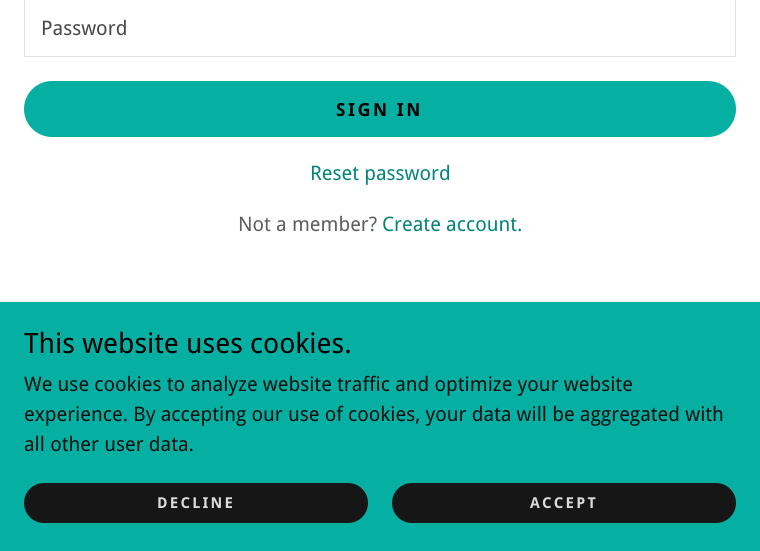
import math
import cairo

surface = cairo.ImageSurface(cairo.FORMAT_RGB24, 760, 551)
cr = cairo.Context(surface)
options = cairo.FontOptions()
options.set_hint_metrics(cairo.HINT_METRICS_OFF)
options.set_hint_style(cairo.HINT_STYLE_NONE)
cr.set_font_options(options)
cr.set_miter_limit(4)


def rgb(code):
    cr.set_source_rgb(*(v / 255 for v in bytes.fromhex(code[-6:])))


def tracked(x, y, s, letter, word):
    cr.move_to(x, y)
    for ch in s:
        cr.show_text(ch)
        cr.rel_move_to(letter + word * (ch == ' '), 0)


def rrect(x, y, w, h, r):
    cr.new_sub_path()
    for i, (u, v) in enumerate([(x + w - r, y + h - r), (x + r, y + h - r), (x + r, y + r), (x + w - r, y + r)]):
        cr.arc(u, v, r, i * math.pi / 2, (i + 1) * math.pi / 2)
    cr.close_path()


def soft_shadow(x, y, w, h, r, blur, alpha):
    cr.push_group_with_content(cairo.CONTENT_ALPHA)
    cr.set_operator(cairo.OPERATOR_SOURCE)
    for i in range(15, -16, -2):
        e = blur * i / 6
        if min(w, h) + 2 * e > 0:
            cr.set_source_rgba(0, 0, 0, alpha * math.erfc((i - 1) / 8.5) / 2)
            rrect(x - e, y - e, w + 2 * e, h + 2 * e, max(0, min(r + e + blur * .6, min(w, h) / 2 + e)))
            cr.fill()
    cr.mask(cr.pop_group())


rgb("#ffffff")
cr.paint()
cr.rectangle(24.5, -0.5, 711, 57)
rgb("#e2e2e2")
cr.set_line_width(1)
cr.stroke()
rgb("#05b0a3")
rrect(24, 81, 712, 56, 28)
cr.fill()
rgb("#000000")
soft_shadow(0, 304, 760, 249, 0, 3, 0.3)
rgb("#05b0a3")
cr.rectangle(0, 302, 760, 249)
cr.fill()
rgb("#161616")
rrect(24, 483, 344, 40, 20)
cr.fill()
rrect(392, 483, 344, 40, 20)
cr.fill()
cr.select_font_face("Droid Sans")
cr.set_font_size(20)
rgb("#474747")
cr.move_to(41, 35)
cr.show_text("Password")
cr.select_font_face("Droid Sans", cairo.FONT_SLANT_NORMAL, cairo.FONT_WEIGHT_BOLD)
cr.set_font_size(18)
rgb("#000000")
tracked(336, 116, "SIGN IN", 2.5, 0)
cr.select_font_face("Droid Sans")
cr.set_font_size(20)
rgb("#04857b")
cr.move_to(310, 180)
cr.show_text("Reset password")
rgb("#5e5e5e")
cr.move_to(238, 231)
cr.show_text("Not a member?")
rgb("#04857b")
cr.move_to(382, 231)
cr.show_text("Create account.")
cr.set_font_size(28)
rgb("#000000")
cr.move_to(24, 353)
cr.show_text("This website uses cookies.")
cr.set_font_size(20)
rgb("#0f1010")
for x, y, s in [
    (24, 391, "We use cookies to analyze website traffic and optimize your website"),
    (24, 421, "experience. By accepting our use of cookies, your data will be aggregated with"),
    (24, 451, "all other user data."),
]:
    cr.move_to(x, y)
    cr.show_text(s)
cr.select_font_face("Droid Sans", cairo.FONT_SLANT_NORMAL, cairo.FONT_WEIGHT_BOLD)
cr.set_font_size(15)
rgb("#dbdbdb")
tracked(157, 508, "DECLINE", 2.25, 0)
tracked(530, 508, "ACCEPT", 2.25, 0)
surface.write_to_png("page.png")
